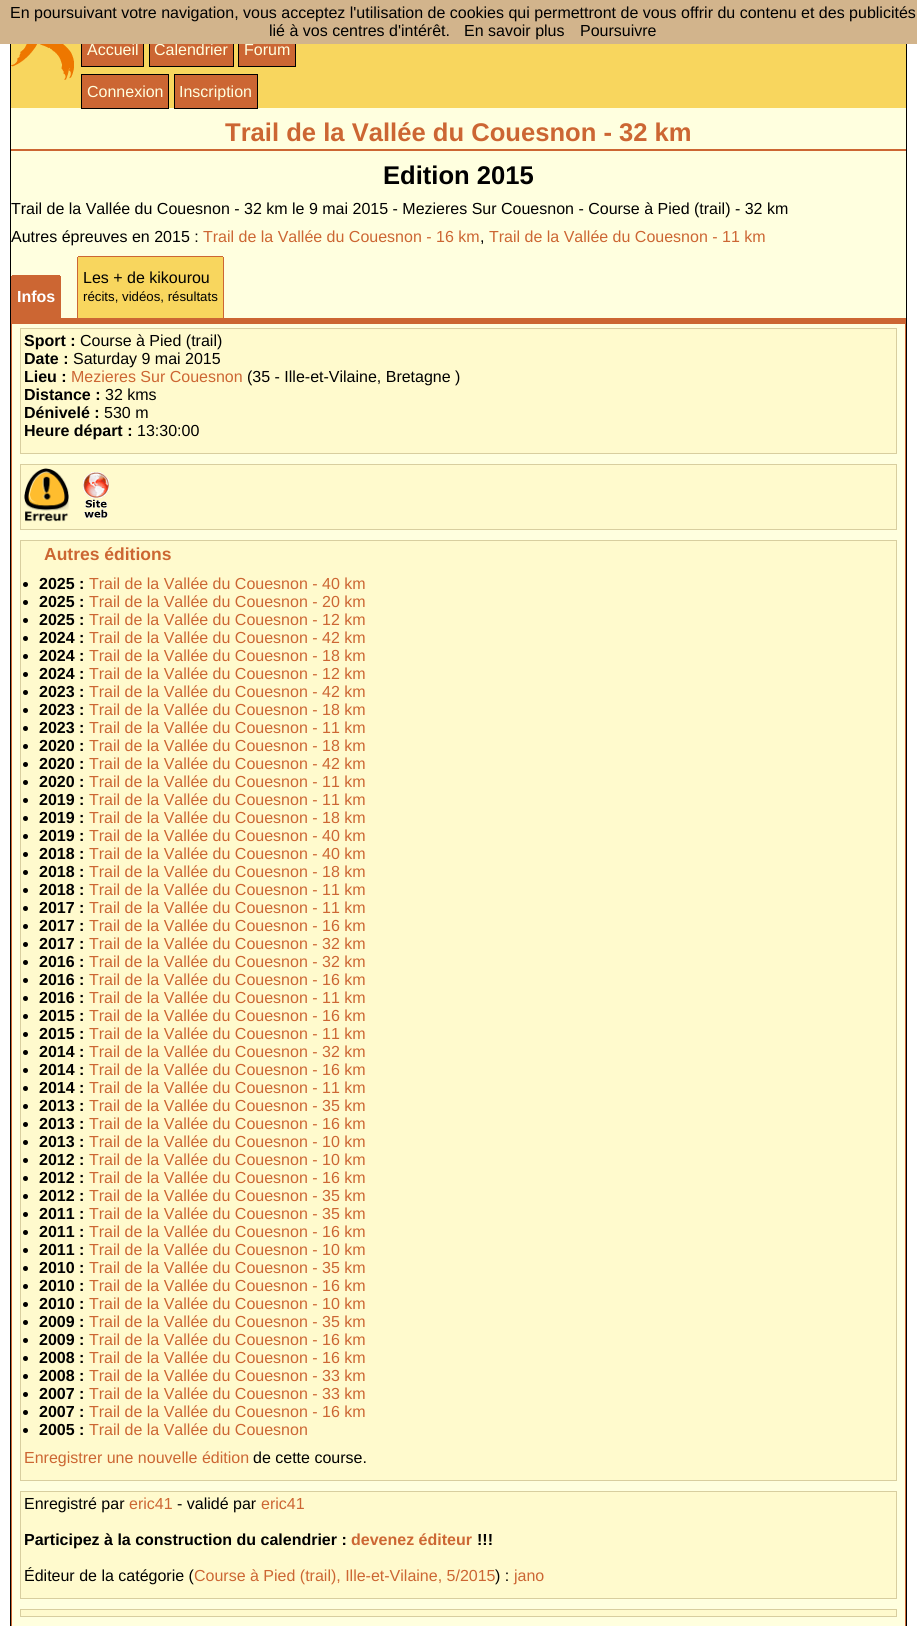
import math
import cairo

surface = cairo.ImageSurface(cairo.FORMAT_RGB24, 917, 1626)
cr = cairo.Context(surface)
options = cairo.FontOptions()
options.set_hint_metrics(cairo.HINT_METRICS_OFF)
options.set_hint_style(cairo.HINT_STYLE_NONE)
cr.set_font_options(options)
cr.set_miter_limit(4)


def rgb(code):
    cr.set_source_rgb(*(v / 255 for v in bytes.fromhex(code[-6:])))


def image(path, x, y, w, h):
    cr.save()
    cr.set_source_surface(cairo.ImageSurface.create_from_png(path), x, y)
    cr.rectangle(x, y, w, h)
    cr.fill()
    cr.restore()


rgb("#ffffff")
cr.paint()
for x, y, w, h, color in [
    (11, 108, 895, 1518, "#ffffdf"),
    (906, 44, 1, 1582, "#000000"),
    (10, 44, 1, 1582, "#000000"),
    (11, 44, 895, 64, "#f8d65e"),
]:
    rgb(color)
    cr.rectangle(x, y, w, h)
    cr.fill()
image("img/1.png", 11, 44, 63, 36)
rgb("#cc6633")
cr.rectangle(82, 44, 61, 22)
cr.fill()
cr.rectangle(81.5, 32.5, 62, 34)
rgb("#000000")
cr.set_line_width(1)
cr.stroke()
rgb("#cc6633")
cr.rectangle(150, 44, 83, 22)
cr.fill()
cr.rectangle(149.5, 32.5, 84, 34)
rgb("#000000")
cr.stroke()
rgb("#cc6633")
cr.rectangle(239, 44, 56, 22)
cr.fill()
cr.rectangle(238.5, 32.5, 57, 34)
rgb("#000000")
cr.stroke()
rgb("#cc6633")
cr.rectangle(81.5, 74.5, 87, 34)
cr.fill_preserve()
rgb("#000000")
cr.stroke()
rgb("#cc6633")
cr.rectangle(174.5, 74.5, 83, 34)
cr.fill_preserve()
rgb("#000000")
cr.stroke()
for x, y, w, h, color in [
    (11, 149, 895, 2, "#cc6633"),
    (11, 318, 895, 5, "#cc6633"),
    (12, 275, 48, 43, "#cc6633"),
    (60, 276, 1, 43, "#cc6633"),
    (11, 276, 1, 43, "#cc6633"),
    (78, 257, 145, 61, "#f8d65e"),
    (223, 257, 1, 61, "#cc6633"),
    (77, 257, 1, 61, "#cc6633"),
    (78, 256, 145, 1, "#cc6633"),
]:
    rgb(color)
    cr.rectangle(x, y, w, h)
    cr.fill()
cr.rectangle(11.5, 323.5, 894, 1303)
cr.stroke()
rgb("#fffacd")
cr.rectangle(20.5, 328.5, 876, 125)
cr.fill_preserve()
rgb("#d8ce9f")
cr.stroke()
rgb("#fffacd")
cr.rectangle(20.5, 464.5, 876, 65)
cr.fill_preserve()
rgb("#d8ce9f")
cr.stroke()
image("img/2.png", 24, 468, 45, 54)
image("img/3.png", 83, 472, 26, 46)
rgb("#fffacd")
cr.rectangle(20.5, 540.5, 876, 940)
cr.fill_preserve()
rgb("#d8ce9f")
cr.stroke()
rgb("#000000")
cr.arc(25.5, 584.5, 2.5, 0, 2 * math.pi)
cr.fill()
cr.arc(25.5, 602.5, 2.5, 0, 2 * math.pi)
cr.fill()
cr.arc(25.5, 620.5, 2.5, 0, 2 * math.pi)
cr.fill()
cr.arc(25.5, 638.5, 2.5, 0, 2 * math.pi)
cr.fill()
cr.arc(25.5, 656.5, 2.5, 0, 2 * math.pi)
cr.fill()
cr.arc(25.5, 674.5, 2.5, 0, 2 * math.pi)
cr.fill()
cr.arc(25.5, 692.5, 2.5, 0, 2 * math.pi)
cr.fill()
cr.arc(25.5, 710.5, 2.5, 0, 2 * math.pi)
cr.fill()
cr.arc(25.5, 728.5, 2.5, 0, 2 * math.pi)
cr.fill()
cr.arc(25.5, 746.5, 2.5, 0, 2 * math.pi)
cr.fill()
cr.arc(25.5, 764.5, 2.5, 0, 2 * math.pi)
cr.fill()
cr.arc(25.5, 782.5, 2.5, 0, 2 * math.pi)
cr.fill()
cr.arc(25.5, 800.5, 2.5, 0, 2 * math.pi)
cr.fill()
cr.arc(25.5, 818.5, 2.5, 0, 2 * math.pi)
cr.fill()
cr.arc(25.5, 836.5, 2.5, 0, 2 * math.pi)
cr.fill()
cr.arc(25.5, 854.5, 2.5, 0, 2 * math.pi)
cr.fill()
cr.arc(25.5, 872.5, 2.5, 0, 2 * math.pi)
cr.fill()
cr.arc(25.5, 890.5, 2.5, 0, 2 * math.pi)
cr.fill()
cr.arc(25.5, 908.5, 2.5, 0, 2 * math.pi)
cr.fill()
cr.arc(25.5, 926.5, 2.5, 0, 2 * math.pi)
cr.fill()
cr.arc(25.5, 944.5, 2.5, 0, 2 * math.pi)
cr.fill()
cr.arc(25.5, 962.5, 2.5, 0, 2 * math.pi)
cr.fill()
cr.arc(25.5, 980.5, 2.5, 0, 2 * math.pi)
cr.fill()
cr.arc(25.5, 998.5, 2.5, 0, 2 * math.pi)
cr.fill()
cr.arc(25.5, 1016.5, 2.5, 0, 2 * math.pi)
cr.fill()
cr.arc(25.5, 1034.5, 2.5, 0, 2 * math.pi)
cr.fill()
cr.arc(25.5, 1052.5, 2.5, 0, 2 * math.pi)
cr.fill()
cr.arc(25.5, 1070.5, 2.5, 0, 2 * math.pi)
cr.fill()
cr.arc(25.5, 1088.5, 2.5, 0, 2 * math.pi)
cr.fill()
cr.arc(25.5, 1106.5, 2.5, 0, 2 * math.pi)
cr.fill()
cr.arc(25.5, 1124.5, 2.5, 0, 2 * math.pi)
cr.fill()
cr.arc(25.5, 1142.5, 2.5, 0, 2 * math.pi)
cr.fill()
cr.arc(25.5, 1160.5, 2.5, 0, 2 * math.pi)
cr.fill()
cr.arc(25.5, 1178.5, 2.5, 0, 2 * math.pi)
cr.fill()
cr.arc(25.5, 1196.5, 2.5, 0, 2 * math.pi)
cr.fill()
cr.arc(25.5, 1214.5, 2.5, 0, 2 * math.pi)
cr.fill()
cr.arc(25.5, 1232.5, 2.5, 0, 2 * math.pi)
cr.fill()
cr.arc(25.5, 1250.5, 2.5, 0, 2 * math.pi)
cr.fill()
cr.arc(25.5, 1268.5, 2.5, 0, 2 * math.pi)
cr.fill()
cr.arc(25.5, 1286.5, 2.5, 0, 2 * math.pi)
cr.fill()
cr.arc(25.5, 1304.5, 2.5, 0, 2 * math.pi)
cr.fill()
cr.arc(25.5, 1322.5, 2.5, 0, 2 * math.pi)
cr.fill()
cr.arc(25.5, 1340.5, 2.5, 0, 2 * math.pi)
cr.fill()
cr.arc(25.5, 1358.5, 2.5, 0, 2 * math.pi)
cr.fill()
cr.arc(25.5, 1376.5, 2.5, 0, 2 * math.pi)
cr.fill()
cr.arc(25.5, 1394.5, 2.5, 0, 2 * math.pi)
cr.fill()
cr.arc(25.5, 1412.5, 2.5, 0, 2 * math.pi)
cr.fill()
cr.arc(25.5, 1430.5, 2.5, 0, 2 * math.pi)
cr.fill()
rgb("#fffacd")
cr.rectangle(20.5, 1491.5, 876, 107)
cr.fill_preserve()
rgb("#d8ce9f")
cr.stroke()
rgb("#fffacd")
cr.rectangle(20.5, 1609.5, 876, 7)
cr.fill_preserve()
rgb("#d8ce9f")
cr.stroke()
cr.select_font_face("Liberation Sans")
cr.set_font_size(16)
rgb("#ffffdf")
cr.move_to(87, 55)
cr.show_text("Accueil")
cr.move_to(154, 55)
cr.show_text("Calendrier")
rgb("#d2b48c")
cr.rectangle(0, 0, 917, 44)
cr.fill()
rgb("#000000")
for x, y, s in [
    (580, 36, "Poursuivre"),
    (464, 36, "En savoir plus"),
    (269, 36, "lié à vos centres d'intérêt."),
    (10, 18, "En poursuivant votre navigation, vous acceptez l'utilisation de cookies qui permettront de vous offrir du contenu et des publicités"),
]:
    cr.move_to(x, y)
    cr.show_text(s)
rgb("#ffffdf")
for x, y, s in [
    (244, 55, "Forum"),
    (87, 97, "Connexion"),
    (179, 97, "Inscription"),
]:
    cr.move_to(x, y)
    cr.show_text(s)
cr.select_font_face("Liberation Sans", cairo.FONT_SLANT_NORMAL, cairo.FONT_WEIGHT_BOLD)
cr.set_font_size(25.6)
rgb("#cc6633")
cr.move_to(225, 141)
cr.show_text("Trail de la Vallée du Couesnon - 32 km")
rgb("#000000")
cr.move_to(383, 184)
cr.show_text("Edition 2015")
cr.select_font_face("Liberation Sans")
cr.set_font_size(16)
cr.move_to(11, 214)
cr.show_text("Trail de la Vallée du Couesnon - 32 km le 9 mai 2015 - Mezieres Sur Couesnon - Course à Pied (trail) - 32 km")
cr.move_to(11, 242)
cr.show_text("Autres épreuves en 2015 :")
rgb("#cc6633")
cr.move_to(203, 242)
cr.show_text("Trail de la Vallée du Couesnon - 16 km")
rgb("#000000")
cr.move_to(480, 242)
cr.show_text(",")
rgb("#cc6633")
cr.move_to(489, 242)
cr.show_text("Trail de la Vallée du Couesnon - 11 km")
cr.select_font_face("Liberation Sans", cairo.FONT_SLANT_NORMAL, cairo.FONT_WEIGHT_BOLD)
rgb("#ffffff")
cr.move_to(17, 302)
cr.show_text("Infos")
cr.select_font_face("Liberation Sans")
rgb("#000000")
cr.move_to(83, 283)
cr.show_text("Les + de kikourou")
cr.set_font_size(13.25)
cr.move_to(83, 301)
cr.show_text("récits, vidéos, résultats")
cr.select_font_face("Liberation Sans", cairo.FONT_SLANT_NORMAL, cairo.FONT_WEIGHT_BOLD)
cr.set_font_size(16)
cr.move_to(24, 346)
cr.show_text("Sport :")
cr.select_font_face("Liberation Sans")
cr.move_to(80, 346)
cr.show_text("Course à Pied (trail)")
cr.select_font_face("Liberation Sans", cairo.FONT_SLANT_NORMAL, cairo.FONT_WEIGHT_BOLD)
cr.move_to(24, 364)
cr.show_text("Date :")
cr.select_font_face("Liberation Sans")
cr.move_to(73, 364)
cr.show_text("Saturday 9 mai 2015")
cr.select_font_face("Liberation Sans", cairo.FONT_SLANT_NORMAL, cairo.FONT_WEIGHT_BOLD)
cr.move_to(24, 382)
cr.show_text("Lieu :")
cr.select_font_face("Liberation Sans")
rgb("#cc6633")
cr.move_to(71, 382)
cr.show_text("Mezieres Sur Couesnon")
rgb("#000000")
cr.move_to(247, 382)
cr.show_text("(35 - Ille-et-Vilaine, Bretagne )")
cr.select_font_face("Liberation Sans", cairo.FONT_SLANT_NORMAL, cairo.FONT_WEIGHT_BOLD)
cr.move_to(24, 400)
cr.show_text("Distance :")
cr.select_font_face("Liberation Sans")
cr.move_to(105, 400)
cr.show_text("32 kms")
cr.select_font_face("Liberation Sans", cairo.FONT_SLANT_NORMAL, cairo.FONT_WEIGHT_BOLD)
cr.move_to(24, 418)
cr.show_text("Dénivelé :")
cr.select_font_face("Liberation Sans")
cr.move_to(104, 418)
cr.show_text("530 m")
cr.select_font_face("Liberation Sans", cairo.FONT_SLANT_NORMAL, cairo.FONT_WEIGHT_BOLD)
cr.move_to(24, 436)
cr.show_text("Heure départ :")
cr.select_font_face("Liberation Sans")
cr.move_to(137, 436)
cr.show_text("13:30:00")
cr.select_font_face("Liberation Sans", cairo.FONT_SLANT_NORMAL, cairo.FONT_WEIGHT_BOLD)
cr.set_font_size(17.5)
rgb("#cc6633")
cr.move_to(44, 560)
cr.show_text("Autres éditions")
cr.set_font_size(16)
rgb("#000000")
cr.move_to(39, 589)
cr.show_text("2025 :")
cr.select_font_face("Liberation Sans")
rgb("#cc6633")
cr.move_to(89, 589)
cr.show_text("Trail de la Vallée du Couesnon - 40 km")
cr.select_font_face("Liberation Sans", cairo.FONT_SLANT_NORMAL, cairo.FONT_WEIGHT_BOLD)
rgb("#000000")
cr.move_to(39, 607)
cr.show_text("2025 :")
cr.select_font_face("Liberation Sans")
rgb("#cc6633")
cr.move_to(89, 607)
cr.show_text("Trail de la Vallée du Couesnon - 20 km")
cr.select_font_face("Liberation Sans", cairo.FONT_SLANT_NORMAL, cairo.FONT_WEIGHT_BOLD)
rgb("#000000")
cr.move_to(39, 625)
cr.show_text("2025 :")
cr.select_font_face("Liberation Sans")
rgb("#cc6633")
cr.move_to(89, 625)
cr.show_text("Trail de la Vallée du Couesnon - 12 km")
cr.select_font_face("Liberation Sans", cairo.FONT_SLANT_NORMAL, cairo.FONT_WEIGHT_BOLD)
rgb("#000000")
cr.move_to(39, 643)
cr.show_text("2024 :")
cr.select_font_face("Liberation Sans")
rgb("#cc6633")
cr.move_to(89, 643)
cr.show_text("Trail de la Vallée du Couesnon - 42 km")
cr.select_font_face("Liberation Sans", cairo.FONT_SLANT_NORMAL, cairo.FONT_WEIGHT_BOLD)
rgb("#000000")
cr.move_to(39, 661)
cr.show_text("2024 :")
cr.select_font_face("Liberation Sans")
rgb("#cc6633")
cr.move_to(89, 661)
cr.show_text("Trail de la Vallée du Couesnon - 18 km")
cr.select_font_face("Liberation Sans", cairo.FONT_SLANT_NORMAL, cairo.FONT_WEIGHT_BOLD)
rgb("#000000")
cr.move_to(39, 679)
cr.show_text("2024 :")
cr.select_font_face("Liberation Sans")
rgb("#cc6633")
cr.move_to(89, 679)
cr.show_text("Trail de la Vallée du Couesnon - 12 km")
cr.select_font_face("Liberation Sans", cairo.FONT_SLANT_NORMAL, cairo.FONT_WEIGHT_BOLD)
rgb("#000000")
cr.move_to(39, 697)
cr.show_text("2023 :")
cr.select_font_face("Liberation Sans")
rgb("#cc6633")
cr.move_to(89, 697)
cr.show_text("Trail de la Vallée du Couesnon - 42 km")
cr.select_font_face("Liberation Sans", cairo.FONT_SLANT_NORMAL, cairo.FONT_WEIGHT_BOLD)
rgb("#000000")
cr.move_to(39, 715)
cr.show_text("2023 :")
cr.select_font_face("Liberation Sans")
rgb("#cc6633")
cr.move_to(89, 715)
cr.show_text("Trail de la Vallée du Couesnon - 18 km")
cr.select_font_face("Liberation Sans", cairo.FONT_SLANT_NORMAL, cairo.FONT_WEIGHT_BOLD)
rgb("#000000")
cr.move_to(39, 733)
cr.show_text("2023 :")
cr.select_font_face("Liberation Sans")
rgb("#cc6633")
cr.move_to(89, 733)
cr.show_text("Trail de la Vallée du Couesnon - 11 km")
cr.select_font_face("Liberation Sans", cairo.FONT_SLANT_NORMAL, cairo.FONT_WEIGHT_BOLD)
rgb("#000000")
cr.move_to(39, 751)
cr.show_text("2020 :")
cr.select_font_face("Liberation Sans")
rgb("#cc6633")
cr.move_to(89, 751)
cr.show_text("Trail de la Vallée du Couesnon - 18 km")
cr.select_font_face("Liberation Sans", cairo.FONT_SLANT_NORMAL, cairo.FONT_WEIGHT_BOLD)
rgb("#000000")
cr.move_to(39, 769)
cr.show_text("2020 :")
cr.select_font_face("Liberation Sans")
rgb("#cc6633")
cr.move_to(89, 769)
cr.show_text("Trail de la Vallée du Couesnon - 42 km")
cr.select_font_face("Liberation Sans", cairo.FONT_SLANT_NORMAL, cairo.FONT_WEIGHT_BOLD)
rgb("#000000")
cr.move_to(39, 787)
cr.show_text("2020 :")
cr.select_font_face("Liberation Sans")
rgb("#cc6633")
cr.move_to(89, 787)
cr.show_text("Trail de la Vallée du Couesnon - 11 km")
cr.select_font_face("Liberation Sans", cairo.FONT_SLANT_NORMAL, cairo.FONT_WEIGHT_BOLD)
rgb("#000000")
cr.move_to(39, 805)
cr.show_text("2019 :")
cr.select_font_face("Liberation Sans")
rgb("#cc6633")
cr.move_to(89, 805)
cr.show_text("Trail de la Vallée du Couesnon - 11 km")
cr.select_font_face("Liberation Sans", cairo.FONT_SLANT_NORMAL, cairo.FONT_WEIGHT_BOLD)
rgb("#000000")
cr.move_to(39, 823)
cr.show_text("2019 :")
cr.select_font_face("Liberation Sans")
rgb("#cc6633")
cr.move_to(89, 823)
cr.show_text("Trail de la Vallée du Couesnon - 18 km")
cr.select_font_face("Liberation Sans", cairo.FONT_SLANT_NORMAL, cairo.FONT_WEIGHT_BOLD)
rgb("#000000")
cr.move_to(39, 841)
cr.show_text("2019 :")
cr.select_font_face("Liberation Sans")
rgb("#cc6633")
cr.move_to(89, 841)
cr.show_text("Trail de la Vallée du Couesnon - 40 km")
cr.select_font_face("Liberation Sans", cairo.FONT_SLANT_NORMAL, cairo.FONT_WEIGHT_BOLD)
rgb("#000000")
cr.move_to(39, 859)
cr.show_text("2018 :")
cr.select_font_face("Liberation Sans")
rgb("#cc6633")
cr.move_to(89, 859)
cr.show_text("Trail de la Vallée du Couesnon - 40 km")
cr.select_font_face("Liberation Sans", cairo.FONT_SLANT_NORMAL, cairo.FONT_WEIGHT_BOLD)
rgb("#000000")
cr.move_to(39, 877)
cr.show_text("2018 :")
cr.select_font_face("Liberation Sans")
rgb("#cc6633")
cr.move_to(89, 877)
cr.show_text("Trail de la Vallée du Couesnon - 18 km")
cr.select_font_face("Liberation Sans", cairo.FONT_SLANT_NORMAL, cairo.FONT_WEIGHT_BOLD)
rgb("#000000")
cr.move_to(39, 895)
cr.show_text("2018 :")
cr.select_font_face("Liberation Sans")
rgb("#cc6633")
cr.move_to(89, 895)
cr.show_text("Trail de la Vallée du Couesnon - 11 km")
cr.select_font_face("Liberation Sans", cairo.FONT_SLANT_NORMAL, cairo.FONT_WEIGHT_BOLD)
rgb("#000000")
cr.move_to(39, 913)
cr.show_text("2017 :")
cr.select_font_face("Liberation Sans")
rgb("#cc6633")
cr.move_to(89, 913)
cr.show_text("Trail de la Vallée du Couesnon - 11 km")
cr.select_font_face("Liberation Sans", cairo.FONT_SLANT_NORMAL, cairo.FONT_WEIGHT_BOLD)
rgb("#000000")
cr.move_to(39, 931)
cr.show_text("2017 :")
cr.select_font_face("Liberation Sans")
rgb("#cc6633")
cr.move_to(89, 931)
cr.show_text("Trail de la Vallée du Couesnon - 16 km")
cr.select_font_face("Liberation Sans", cairo.FONT_SLANT_NORMAL, cairo.FONT_WEIGHT_BOLD)
rgb("#000000")
cr.move_to(39, 949)
cr.show_text("2017 :")
cr.select_font_face("Liberation Sans")
rgb("#cc6633")
cr.move_to(89, 949)
cr.show_text("Trail de la Vallée du Couesnon - 32 km")
cr.select_font_face("Liberation Sans", cairo.FONT_SLANT_NORMAL, cairo.FONT_WEIGHT_BOLD)
rgb("#000000")
cr.move_to(39, 967)
cr.show_text("2016 :")
cr.select_font_face("Liberation Sans")
rgb("#cc6633")
cr.move_to(89, 967)
cr.show_text("Trail de la Vallée du Couesnon - 32 km")
cr.select_font_face("Liberation Sans", cairo.FONT_SLANT_NORMAL, cairo.FONT_WEIGHT_BOLD)
rgb("#000000")
cr.move_to(39, 985)
cr.show_text("2016 :")
cr.select_font_face("Liberation Sans")
rgb("#cc6633")
cr.move_to(89, 985)
cr.show_text("Trail de la Vallée du Couesnon - 16 km")
cr.select_font_face("Liberation Sans", cairo.FONT_SLANT_NORMAL, cairo.FONT_WEIGHT_BOLD)
rgb("#000000")
cr.move_to(39, 1003)
cr.show_text("2016 :")
cr.select_font_face("Liberation Sans")
rgb("#cc6633")
cr.move_to(89, 1003)
cr.show_text("Trail de la Vallée du Couesnon - 11 km")
cr.select_font_face("Liberation Sans", cairo.FONT_SLANT_NORMAL, cairo.FONT_WEIGHT_BOLD)
rgb("#000000")
cr.move_to(39, 1021)
cr.show_text("2015 :")
cr.select_font_face("Liberation Sans")
rgb("#cc6633")
cr.move_to(89, 1021)
cr.show_text("Trail de la Vallée du Couesnon - 16 km")
cr.select_font_face("Liberation Sans", cairo.FONT_SLANT_NORMAL, cairo.FONT_WEIGHT_BOLD)
rgb("#000000")
cr.move_to(39, 1039)
cr.show_text("2015 :")
cr.select_font_face("Liberation Sans")
rgb("#cc6633")
cr.move_to(89, 1039)
cr.show_text("Trail de la Vallée du Couesnon - 11 km")
cr.select_font_face("Liberation Sans", cairo.FONT_SLANT_NORMAL, cairo.FONT_WEIGHT_BOLD)
rgb("#000000")
cr.move_to(39, 1057)
cr.show_text("2014 :")
cr.select_font_face("Liberation Sans")
rgb("#cc6633")
cr.move_to(89, 1057)
cr.show_text("Trail de la Vallée du Couesnon - 32 km")
cr.select_font_face("Liberation Sans", cairo.FONT_SLANT_NORMAL, cairo.FONT_WEIGHT_BOLD)
rgb("#000000")
cr.move_to(39, 1075)
cr.show_text("2014 :")
cr.select_font_face("Liberation Sans")
rgb("#cc6633")
cr.move_to(89, 1075)
cr.show_text("Trail de la Vallée du Couesnon - 16 km")
cr.select_font_face("Liberation Sans", cairo.FONT_SLANT_NORMAL, cairo.FONT_WEIGHT_BOLD)
rgb("#000000")
cr.move_to(39, 1093)
cr.show_text("2014 :")
cr.select_font_face("Liberation Sans")
rgb("#cc6633")
cr.move_to(89, 1093)
cr.show_text("Trail de la Vallée du Couesnon - 11 km")
cr.select_font_face("Liberation Sans", cairo.FONT_SLANT_NORMAL, cairo.FONT_WEIGHT_BOLD)
rgb("#000000")
cr.move_to(39, 1111)
cr.show_text("2013 :")
cr.select_font_face("Liberation Sans")
rgb("#cc6633")
cr.move_to(89, 1111)
cr.show_text("Trail de la Vallée du Couesnon - 35 km")
cr.select_font_face("Liberation Sans", cairo.FONT_SLANT_NORMAL, cairo.FONT_WEIGHT_BOLD)
rgb("#000000")
cr.move_to(39, 1129)
cr.show_text("2013 :")
cr.select_font_face("Liberation Sans")
rgb("#cc6633")
cr.move_to(89, 1129)
cr.show_text("Trail de la Vallée du Couesnon - 16 km")
cr.select_font_face("Liberation Sans", cairo.FONT_SLANT_NORMAL, cairo.FONT_WEIGHT_BOLD)
rgb("#000000")
cr.move_to(39, 1147)
cr.show_text("2013 :")
cr.select_font_face("Liberation Sans")
rgb("#cc6633")
cr.move_to(89, 1147)
cr.show_text("Trail de la Vallée du Couesnon - 10 km")
cr.select_font_face("Liberation Sans", cairo.FONT_SLANT_NORMAL, cairo.FONT_WEIGHT_BOLD)
rgb("#000000")
cr.move_to(39, 1165)
cr.show_text("2012 :")
cr.select_font_face("Liberation Sans")
rgb("#cc6633")
cr.move_to(89, 1165)
cr.show_text("Trail de la Vallée du Couesnon - 10 km")
cr.select_font_face("Liberation Sans", cairo.FONT_SLANT_NORMAL, cairo.FONT_WEIGHT_BOLD)
rgb("#000000")
cr.move_to(39, 1183)
cr.show_text("2012 :")
cr.select_font_face("Liberation Sans")
rgb("#cc6633")
cr.move_to(89, 1183)
cr.show_text("Trail de la Vallée du Couesnon - 16 km")
cr.select_font_face("Liberation Sans", cairo.FONT_SLANT_NORMAL, cairo.FONT_WEIGHT_BOLD)
rgb("#000000")
cr.move_to(39, 1201)
cr.show_text("2012 :")
cr.select_font_face("Liberation Sans")
rgb("#cc6633")
cr.move_to(89, 1201)
cr.show_text("Trail de la Vallée du Couesnon - 35 km")
cr.select_font_face("Liberation Sans", cairo.FONT_SLANT_NORMAL, cairo.FONT_WEIGHT_BOLD)
rgb("#000000")
cr.move_to(39, 1219)
cr.show_text("2011 :")
cr.select_font_face("Liberation Sans")
rgb("#cc6633")
cr.move_to(89, 1219)
cr.show_text("Trail de la Vallée du Couesnon - 35 km")
cr.select_font_face("Liberation Sans", cairo.FONT_SLANT_NORMAL, cairo.FONT_WEIGHT_BOLD)
rgb("#000000")
cr.move_to(39, 1237)
cr.show_text("2011 :")
cr.select_font_face("Liberation Sans")
rgb("#cc6633")
cr.move_to(89, 1237)
cr.show_text("Trail de la Vallée du Couesnon - 16 km")
cr.select_font_face("Liberation Sans", cairo.FONT_SLANT_NORMAL, cairo.FONT_WEIGHT_BOLD)
rgb("#000000")
cr.move_to(39, 1255)
cr.show_text("2011 :")
cr.select_font_face("Liberation Sans")
rgb("#cc6633")
cr.move_to(89, 1255)
cr.show_text("Trail de la Vallée du Couesnon - 10 km")
cr.select_font_face("Liberation Sans", cairo.FONT_SLANT_NORMAL, cairo.FONT_WEIGHT_BOLD)
rgb("#000000")
cr.move_to(39, 1273)
cr.show_text("2010 :")
cr.select_font_face("Liberation Sans")
rgb("#cc6633")
cr.move_to(89, 1273)
cr.show_text("Trail de la Vallée du Couesnon - 35 km")
cr.select_font_face("Liberation Sans", cairo.FONT_SLANT_NORMAL, cairo.FONT_WEIGHT_BOLD)
rgb("#000000")
cr.move_to(39, 1291)
cr.show_text("2010 :")
cr.select_font_face("Liberation Sans")
rgb("#cc6633")
cr.move_to(89, 1291)
cr.show_text("Trail de la Vallée du Couesnon - 16 km")
cr.select_font_face("Liberation Sans", cairo.FONT_SLANT_NORMAL, cairo.FONT_WEIGHT_BOLD)
rgb("#000000")
cr.move_to(39, 1309)
cr.show_text("2010 :")
cr.select_font_face("Liberation Sans")
rgb("#cc6633")
cr.move_to(89, 1309)
cr.show_text("Trail de la Vallée du Couesnon - 10 km")
cr.select_font_face("Liberation Sans", cairo.FONT_SLANT_NORMAL, cairo.FONT_WEIGHT_BOLD)
rgb("#000000")
cr.move_to(39, 1327)
cr.show_text("2009 :")
cr.select_font_face("Liberation Sans")
rgb("#cc6633")
cr.move_to(89, 1327)
cr.show_text("Trail de la Vallée du Couesnon - 35 km")
cr.select_font_face("Liberation Sans", cairo.FONT_SLANT_NORMAL, cairo.FONT_WEIGHT_BOLD)
rgb("#000000")
cr.move_to(39, 1345)
cr.show_text("2009 :")
cr.select_font_face("Liberation Sans")
rgb("#cc6633")
cr.move_to(89, 1345)
cr.show_text("Trail de la Vallée du Couesnon - 16 km")
cr.select_font_face("Liberation Sans", cairo.FONT_SLANT_NORMAL, cairo.FONT_WEIGHT_BOLD)
rgb("#000000")
cr.move_to(39, 1363)
cr.show_text("2008 :")
cr.select_font_face("Liberation Sans")
rgb("#cc6633")
cr.move_to(89, 1363)
cr.show_text("Trail de la Vallée du Couesnon - 16 km")
cr.select_font_face("Liberation Sans", cairo.FONT_SLANT_NORMAL, cairo.FONT_WEIGHT_BOLD)
rgb("#000000")
cr.move_to(39, 1381)
cr.show_text("2008 :")
cr.select_font_face("Liberation Sans")
rgb("#cc6633")
cr.move_to(89, 1381)
cr.show_text("Trail de la Vallée du Couesnon - 33 km")
cr.select_font_face("Liberation Sans", cairo.FONT_SLANT_NORMAL, cairo.FONT_WEIGHT_BOLD)
rgb("#000000")
cr.move_to(39, 1399)
cr.show_text("2007 :")
cr.select_font_face("Liberation Sans")
rgb("#cc6633")
cr.move_to(89, 1399)
cr.show_text("Trail de la Vallée du Couesnon - 33 km")
cr.select_font_face("Liberation Sans", cairo.FONT_SLANT_NORMAL, cairo.FONT_WEIGHT_BOLD)
rgb("#000000")
cr.move_to(39, 1417)
cr.show_text("2007 :")
cr.select_font_face("Liberation Sans")
rgb("#cc6633")
cr.move_to(89, 1417)
cr.show_text("Trail de la Vallée du Couesnon - 16 km")
cr.select_font_face("Liberation Sans", cairo.FONT_SLANT_NORMAL, cairo.FONT_WEIGHT_BOLD)
rgb("#000000")
cr.move_to(39, 1435)
cr.show_text("2005 :")
cr.select_font_face("Liberation Sans")
rgb("#cc6633")
cr.move_to(89, 1435)
cr.show_text("Trail de la Vallée du Couesnon")
cr.move_to(24, 1463)
cr.show_text("Enregistrer une nouvelle édition")
rgb("#000000")
cr.move_to(253, 1463)
cr.show_text("de cette course.")
cr.move_to(24, 1509)
cr.show_text("Enregistré par")
rgb("#cc6633")
cr.move_to(129, 1509)
cr.show_text("eric41")
rgb("#000000")
cr.move_to(177, 1509)
cr.show_text("- validé par")
rgb("#cc6633")
cr.move_to(261, 1509)
cr.show_text("eric41")
cr.select_font_face("Liberation Sans", cairo.FONT_SLANT_NORMAL, cairo.FONT_WEIGHT_BOLD)
rgb("#000000")
cr.move_to(24, 1545)
cr.show_text("Participez à la construction du calendrier :")
rgb("#cc6633")
cr.move_to(351, 1545)
cr.show_text("devenez éditeur")
rgb("#000000")
cr.move_to(477, 1545)
cr.show_text("!!!")
cr.select_font_face("Liberation Sans")
cr.move_to(24, 1581)
cr.show_text("Éditeur de la catégorie (")
rgb("#cc6633")
cr.move_to(194, 1581)
cr.show_text("Course à Pied (trail), Ille-et-Vilaine, 5/2015")
rgb("#000000")
cr.move_to(495, 1581)
cr.show_text(") :")
rgb("#cc6633")
cr.move_to(514, 1581)
cr.show_text("jano")
surface.write_to_png("page.png")
